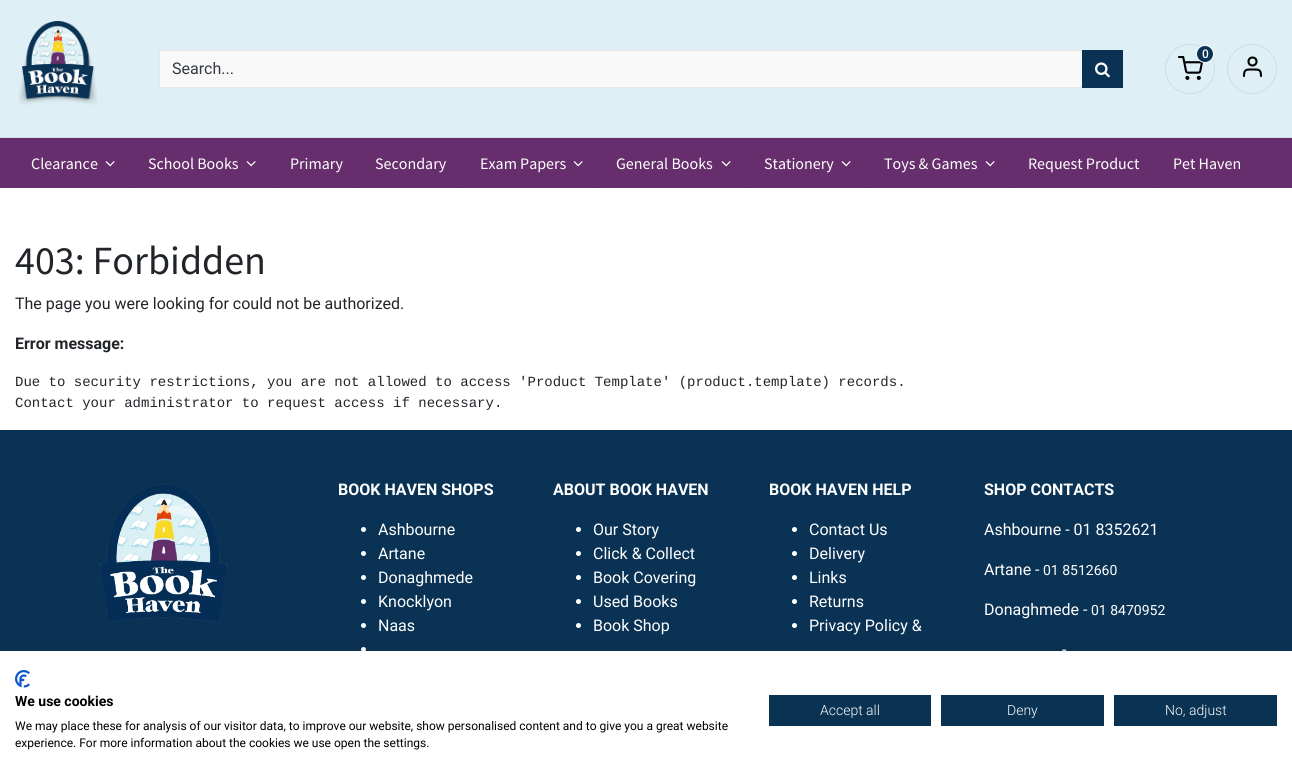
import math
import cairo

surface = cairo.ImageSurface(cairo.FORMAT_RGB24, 1292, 779)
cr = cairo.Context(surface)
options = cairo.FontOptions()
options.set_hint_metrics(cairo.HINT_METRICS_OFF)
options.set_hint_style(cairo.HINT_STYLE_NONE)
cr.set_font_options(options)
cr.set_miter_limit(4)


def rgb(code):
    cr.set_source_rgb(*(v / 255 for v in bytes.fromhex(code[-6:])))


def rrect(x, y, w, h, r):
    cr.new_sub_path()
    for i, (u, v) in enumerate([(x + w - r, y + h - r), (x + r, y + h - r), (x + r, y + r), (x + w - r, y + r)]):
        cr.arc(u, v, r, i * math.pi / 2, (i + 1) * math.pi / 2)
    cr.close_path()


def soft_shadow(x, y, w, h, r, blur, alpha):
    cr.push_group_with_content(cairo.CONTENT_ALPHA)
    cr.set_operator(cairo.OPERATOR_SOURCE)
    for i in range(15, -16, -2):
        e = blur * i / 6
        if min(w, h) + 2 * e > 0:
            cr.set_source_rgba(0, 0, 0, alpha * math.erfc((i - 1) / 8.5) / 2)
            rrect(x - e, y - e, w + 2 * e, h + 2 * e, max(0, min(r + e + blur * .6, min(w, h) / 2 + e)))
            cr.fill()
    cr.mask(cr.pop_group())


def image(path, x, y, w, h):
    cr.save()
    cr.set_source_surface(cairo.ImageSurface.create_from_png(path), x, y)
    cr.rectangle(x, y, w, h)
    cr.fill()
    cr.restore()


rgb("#ffffff")
cr.paint()
rgb("#def0f6")
cr.rectangle(0, 0, 1292, 137)
cr.fill()
rgb("#cddee4")
cr.rectangle(0, 137, 1292, 1)
cr.fill()
image("img/1.png", 18, 21, 80, 84)
cr.arc(1190, 69, 24.5, 0, 2 * math.pi)
cr.set_line_width(1)
cr.stroke()
image("img/2.png", 1178, 56, 25, 24)
rgb("#0a3254")
cr.arc(1205, 54, 8.5, 0, 2 * math.pi)
cr.fill_preserve()
rgb("#ffffff")
cr.stroke()
cr.arc(1252, 69, 24.5, 0, 2 * math.pi)
rgb("#cddee4")
cr.stroke()
cr.new_path()
cr.move_to(1261, 76)
cr.curve_to(1261, 69, 1258.5, 69.5, 1252.5, 69.5)
cr.curve_to(1246.5, 69.5, 1244, 69, 1244, 76)
rgb("#000000")
cr.set_line_width(2.1)
cr.set_line_cap(cairo.LINE_CAP_ROUND)
cr.set_line_join(cairo.LINE_JOIN_ROUND)
cr.stroke()
cr.arc(1252.5, 61.5, 4, 0, 2 * math.pi)
cr.set_line_cap(cairo.LINE_CAP_BUTT)
cr.set_line_join(cairo.LINE_JOIN_MITER)
cr.stroke()
rgb("#f9f9f9")
cr.rectangle(159.5, 50.5, 923, 37)
cr.fill_preserve()
rgb("#e5e6e6")
cr.set_line_width(1)
cr.stroke()
rgb("#0a3254")
cr.rectangle(1082, 50, 41, 38)
cr.fill()
image("img/3.png", 1095, 62, 15, 16)
rgb("#662e6c")
cr.rectangle(0, 138, 1292, 50)
cr.fill()
image("img/4.png", 105, 161, 10, 6)
rgb("#612f68")
cr.rectangle(131, 138, 1, 50)
cr.fill()
image("img/4.png", 246, 161, 10, 6)
for x, y, w, h, color in [
    (273, 138, 1, 50, "#612f68"),
    (358, 138, 1, 50, "#612f68"),
    (463, 138, 1, 50, "#612f68"),
]:
    rgb(color)
    cr.rectangle(x, y, w, h)
    cr.fill()
image("img/4.png", 573, 161, 10, 6)
cr.rectangle(599, 138, 1, 50)
cr.fill()
image("img/4.png", 721, 161, 10, 6)
cr.rectangle(747, 138, 1, 50)
cr.fill()
image("img/4.png", 841, 161, 10, 6)
cr.rectangle(867, 138, 1, 50)
cr.fill()
image("img/4.png", 985, 161, 10, 6)
for x, y, w, h, color in [
    (1011, 138, 1, 50, "#612f68"),
    (1156, 138, 1, 50, "#612f68"),
    (0, 430, 1292, 221, "#0a3254"),
]:
    rgb(color)
    cr.rectangle(x, y, w, h)
    cr.fill()
image("img/5.png", 99, 484, 129, 138)
rgb("#ffffff")
cr.arc(363.5, 529.5, 2.5, 0, 2 * math.pi)
cr.fill()
cr.arc(363.5, 553.5, 2.5, 0, 2 * math.pi)
cr.fill()
cr.arc(363.5, 577.5, 2.5, 0, 2 * math.pi)
cr.fill()
cr.arc(363.5, 601.5, 2.5, 0, 2 * math.pi)
cr.fill()
cr.arc(363.5, 625.5, 2.5, 0, 2 * math.pi)
cr.fill()
cr.arc(363.5, 649.5, 2.5, 0, 2 * math.pi)
cr.fill()
cr.arc(578.5, 529.5, 2.5, 0, 2 * math.pi)
cr.fill()
cr.arc(578.5, 553.5, 2.5, 0, 2 * math.pi)
cr.fill()
cr.arc(578.5, 577.5, 2.5, 0, 2 * math.pi)
cr.fill()
cr.arc(578.5, 601.5, 2.5, 0, 2 * math.pi)
cr.fill()
cr.arc(578.5, 625.5, 2.5, 0, 2 * math.pi)
cr.fill()
cr.arc(794.5, 529.5, 2.5, 0, 2 * math.pi)
cr.fill()
cr.arc(794.5, 553.5, 2.5, 0, 2 * math.pi)
cr.fill()
cr.arc(794.5, 577.5, 2.5, 0, 2 * math.pi)
cr.fill()
cr.arc(794.5, 601.5, 2.5, 0, 2 * math.pi)
cr.fill()
cr.arc(794.5, 625.5, 2.5, 0, 2 * math.pi)
cr.fill()
rgb("#000000")
soft_shadow(0, 651, 1292, 128, 0, 12, 0.1)
rgb("#ffffff")
cr.rectangle(0, 651, 1292, 128)
cr.fill()
image("img/6.png", 15, 670, 15, 18)
for x, y, w, h, color in [
    (769, 695, 162, 31, "#0a3253"),
    (941, 695, 163, 31, "#0a3253"),
    (1114, 695, 163, 31, "#0a3253"),
]:
    rgb(color)
    cr.rectangle(x, y, w, h)
    cr.fill()
cr.select_font_face("Roboto Medium")
cr.set_font_size(12)
rgb("#ffffff")
cr.move_to(1202, 58)
cr.show_text("0")
cr.select_font_face("Roboto")
cr.set_font_size(16)
rgb("#343a40")
cr.move_to(172, 74)
cr.show_text("Search...")
cr.select_font_face("Source Sans Pro")
rgb("#ffffff")
for x, y, s in [
    (31, 169, "Clearance"),
    (148, 169, "School Books"),
    (290, 169, "Primary"),
    (375, 169, "Secondary"),
    (480, 169, "Exam Papers"),
    (616, 169, "General Books"),
    (764, 169, "Stationery"),
    (884, 169, "Toys & Games"),
    (1028, 169, "Request Product"),
    (1173, 169, "Pet Haven"),
]:
    cr.move_to(x, y)
    cr.show_text(s)
cr.set_font_size(40)
rgb("#212529")
cr.move_to(15, 274)
cr.show_text("403: Forbidden")
cr.select_font_face("Roboto")
cr.set_font_size(16)
cr.move_to(15, 309)
cr.show_text("The page you were looking for could not be authorized.")
cr.select_font_face("Roboto", cairo.FONT_SLANT_NORMAL, cairo.FONT_WEIGHT_BOLD)
cr.move_to(15, 349)
cr.show_text("Error message:")
cr.select_font_face("Liberation Mono")
cr.set_font_size(14)
cr.move_to(15, 386)
cr.show_text("Due to security restrictions, you are not allowed to access 'Product Template' (product.template) records.")
cr.move_to(15, 407)
cr.show_text("Contact your administrator to request access if necessary.")
cr.select_font_face("Roboto", cairo.FONT_SLANT_NORMAL, cairo.FONT_WEIGHT_BOLD)
cr.set_font_size(16)
rgb("#ffffff")
cr.move_to(338, 495)
cr.show_text("BOOK HAVEN SHOPS")
cr.select_font_face("Roboto")
for x, y, s in [
    (378, 535, "Ashbourne"),
    (378, 559, "Artane"),
    (378, 583, "Donaghmede"),
    (378, 607, "Knocklyon"),
    (378, 631, "Naas"),
]:
    cr.move_to(x, y)
    cr.show_text(s)
cr.select_font_face("Roboto", cairo.FONT_SLANT_NORMAL, cairo.FONT_WEIGHT_BOLD)
cr.move_to(553, 495)
cr.show_text("ABOUT BOOK HAVEN")
cr.select_font_face("Roboto")
for x, y, s in [
    (593, 535, "Our Story"),
    (593, 559, "Click & Collect"),
    (593, 583, "Book Covering"),
    (593, 607, "Used Books"),
    (593, 631, "Book Shop"),
]:
    cr.move_to(x, y)
    cr.show_text(s)
cr.select_font_face("Roboto", cairo.FONT_SLANT_NORMAL, cairo.FONT_WEIGHT_BOLD)
cr.move_to(769, 495)
cr.show_text("BOOK HAVEN HELP")
cr.select_font_face("Roboto")
for x, y, s in [
    (809, 535, "Contact Us"),
    (809, 559, "Delivery"),
    (809, 583, "Links"),
    (809, 607, "Returns"),
    (809, 631, "Privacy Policy &"),
]:
    cr.move_to(x, y)
    cr.show_text(s)
cr.select_font_face("Roboto", cairo.FONT_SLANT_NORMAL, cairo.FONT_WEIGHT_BOLD)
cr.move_to(984, 495)
cr.show_text("SHOP CONTACTS")
cr.select_font_face("Roboto")
cr.move_to(984, 535)
cr.show_text("Ashbourne - 01 8352621")
cr.move_to(984, 575)
cr.show_text("Artane -")
cr.set_font_size(14)
cr.move_to(1043, 575)
cr.show_text("01 8512660")
cr.set_font_size(16)
cr.move_to(984, 615)
cr.show_text("Donaghmede -")
cr.set_font_size(14)
cr.move_to(1091, 615)
cr.show_text("01 8470952")
cr.set_font_size(16)
cr.move_to(1062, 655)
cr.show_text("-")
cr.select_font_face("Roboto", cairo.FONT_SLANT_NORMAL, cairo.FONT_WEIGHT_BOLD)
cr.set_font_size(14)
rgb("#000000")
cr.move_to(15, 706)
cr.show_text("We use cookies")
cr.select_font_face("Roboto")
cr.set_font_size(12)
cr.move_to(15, 730)
cr.show_text("We may place these for analysis of our visitor data, to improve our website, show personalised content and to give you a great website")
cr.move_to(15, 747)
cr.show_text("experience. For more information about the cookies we use open the settings.")
cr.select_font_face("Roboto Light")
cr.set_font_size(14)
rgb("#ffffff")
for x, y, s in [
    (820, 715, "Accept all"),
    (1007, 715, "Deny"),
    (1165, 715, "No, adjust"),
]:
    cr.move_to(x, y)
    cr.show_text(s)
surface.write_to_png("page.png")
